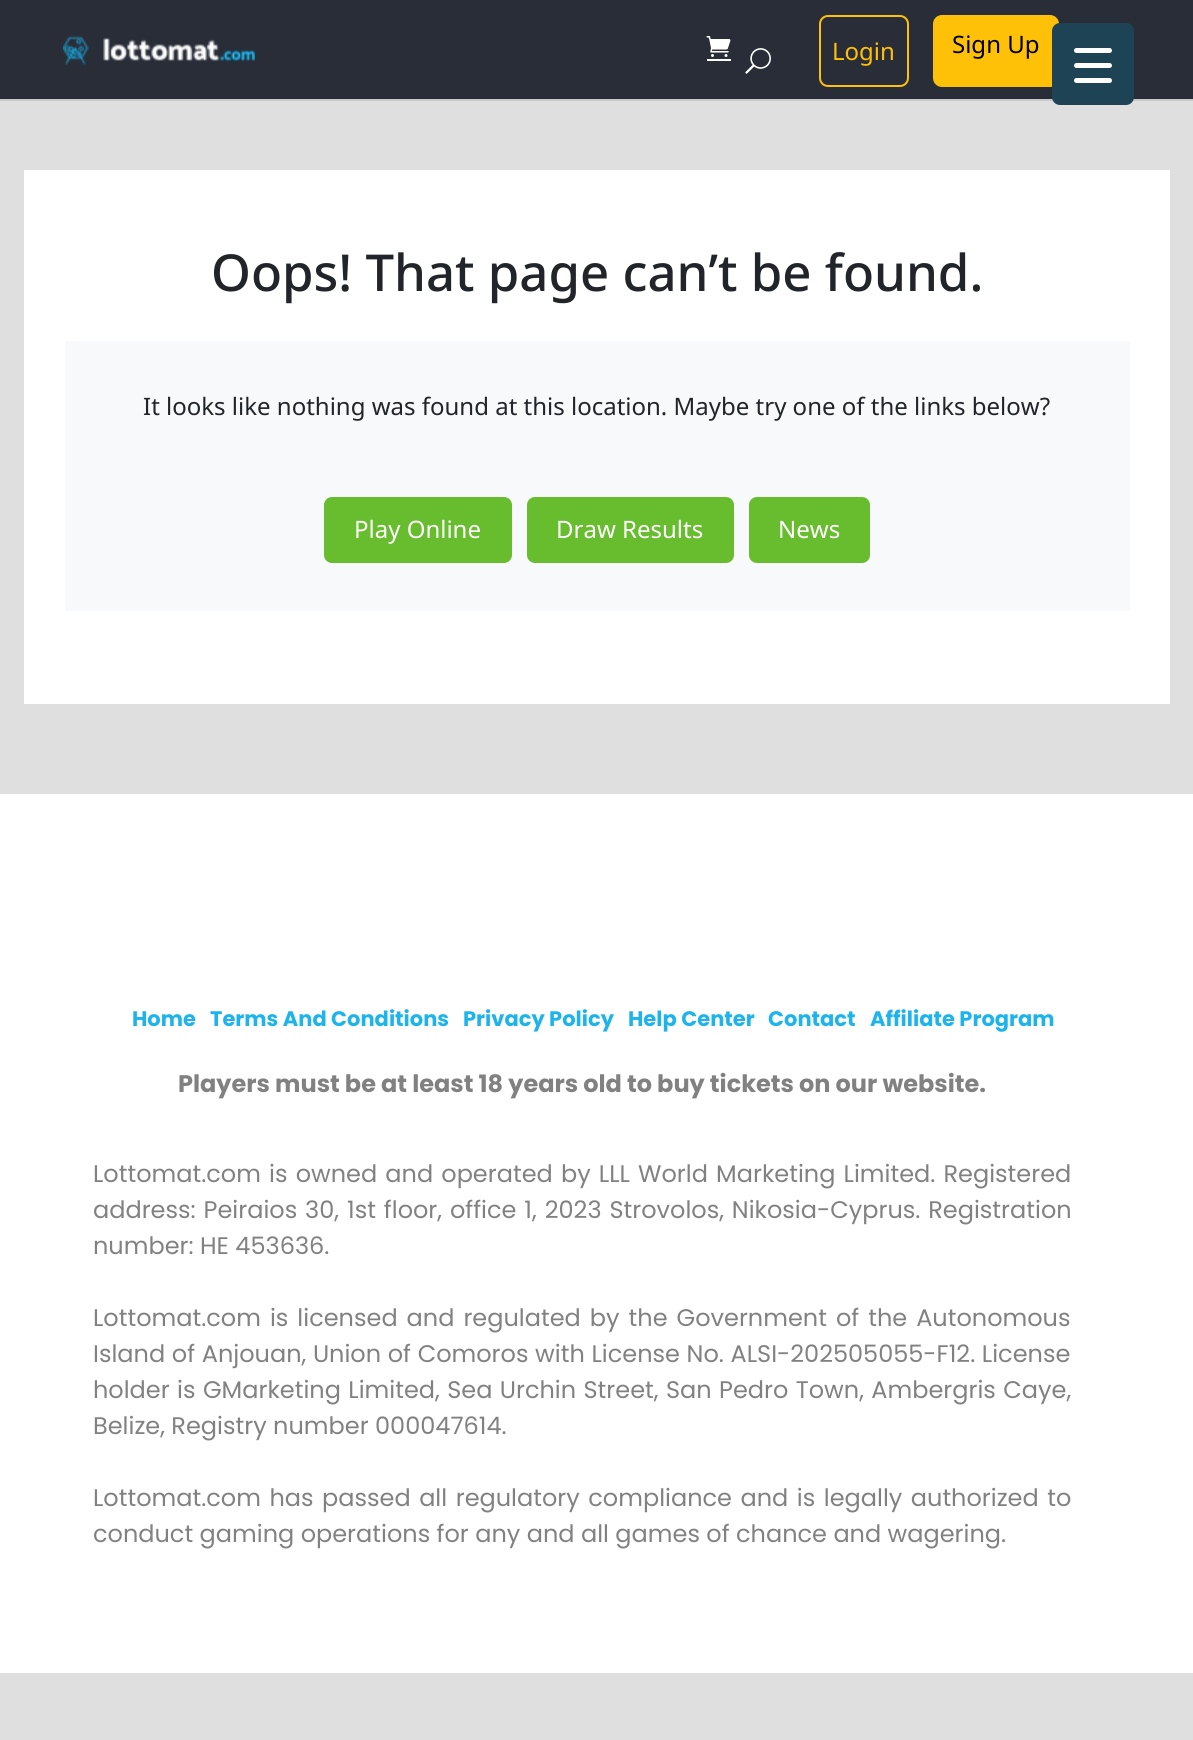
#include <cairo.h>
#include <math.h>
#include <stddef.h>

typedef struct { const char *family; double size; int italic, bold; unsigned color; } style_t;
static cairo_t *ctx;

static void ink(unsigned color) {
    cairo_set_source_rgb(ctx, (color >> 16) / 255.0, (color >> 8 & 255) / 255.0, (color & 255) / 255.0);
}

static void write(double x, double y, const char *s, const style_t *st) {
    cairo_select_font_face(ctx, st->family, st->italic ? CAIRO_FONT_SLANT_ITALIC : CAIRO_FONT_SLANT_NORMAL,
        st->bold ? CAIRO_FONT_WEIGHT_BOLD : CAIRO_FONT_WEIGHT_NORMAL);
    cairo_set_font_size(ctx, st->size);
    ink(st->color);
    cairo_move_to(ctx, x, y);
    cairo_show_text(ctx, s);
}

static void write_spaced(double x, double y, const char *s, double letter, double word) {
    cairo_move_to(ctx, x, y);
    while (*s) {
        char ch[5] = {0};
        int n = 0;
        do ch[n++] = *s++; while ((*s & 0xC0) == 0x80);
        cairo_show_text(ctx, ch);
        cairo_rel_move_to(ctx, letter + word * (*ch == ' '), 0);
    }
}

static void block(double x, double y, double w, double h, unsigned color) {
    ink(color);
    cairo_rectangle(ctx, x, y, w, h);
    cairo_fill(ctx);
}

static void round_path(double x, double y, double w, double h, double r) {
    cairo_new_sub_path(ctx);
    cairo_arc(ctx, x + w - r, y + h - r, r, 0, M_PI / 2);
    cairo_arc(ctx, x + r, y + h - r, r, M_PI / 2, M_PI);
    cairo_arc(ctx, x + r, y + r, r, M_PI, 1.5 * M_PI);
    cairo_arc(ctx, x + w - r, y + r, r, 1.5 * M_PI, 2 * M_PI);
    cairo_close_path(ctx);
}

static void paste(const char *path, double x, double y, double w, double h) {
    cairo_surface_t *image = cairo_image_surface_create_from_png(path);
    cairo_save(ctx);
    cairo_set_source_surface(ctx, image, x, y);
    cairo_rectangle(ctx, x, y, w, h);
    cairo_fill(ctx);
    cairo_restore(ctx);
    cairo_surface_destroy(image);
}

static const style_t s1 = {"Noto Sans", 24, 0, 0, 0xffc107};
static const style_t s2 = {"Noto Sans", 24, 0, 0, 0x000000};
static const style_t s3 = {"Noto Sans Medium", 50.9, 0, 0, 0x212529};
static const style_t s4 = {"Noto Sans", 24, 0, 0, 0x212529};
static const style_t s5 = {"Noto Sans", 24, 0, 0, 0xffffff};
static const style_t s6 = {"Poppins", 21, 0, 1, 0x1db4ed};
static const style_t s7 = {"Poppins", 24, 0, 1, 0x818181};
static const style_t s8 = {"Poppins", 24, 0, 0, 0x818181};

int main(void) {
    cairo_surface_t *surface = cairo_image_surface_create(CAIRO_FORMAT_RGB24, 1193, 1740);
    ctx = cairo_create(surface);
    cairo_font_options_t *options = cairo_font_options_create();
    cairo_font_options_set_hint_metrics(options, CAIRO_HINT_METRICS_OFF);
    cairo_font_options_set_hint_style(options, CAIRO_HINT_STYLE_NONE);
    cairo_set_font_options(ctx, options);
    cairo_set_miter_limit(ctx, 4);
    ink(0xdfdfdf);
    cairo_paint(ctx);
    block(0, 99, 1193, 2, 0xc9c9c9);
    block(0, 0, 1193, 99, 0x292d38);
    paste("pic1.png", 63, 35, 192, 30);
    paste("pic2.png", 706, 36, 25, 21);
    block(707, 59, 24, 2, 0xffffff);
    paste("pic3.png", 745, 48, 26, 26);
    round_path(820, 16, 88, 70, 8);
    ink(0xffc107);
    cairo_stroke(ctx);
    write(832, 60, "Login", &s1);
    round_path(934, 16, 124, 70, 8);
    cairo_fill_preserve(ctx);
    cairo_stroke(ctx);
    write(952, 53, "Sign Up", &s2);
    block(24, 170, 1146, 534, 0xffffff);
    write(211, 291, "Oops! That page can’t be found.", &s3);
    block(65, 341, 1065, 270, 0xf8f9fa);
    write(143, 415, "It looks like nothing was found at this location. Maybe try one of the links below?", &s4);
    ink(0x67bd2e);
    round_path(324, 497, 188, 66, 8);
    cairo_fill(ctx);
    write(354, 538, "Play Online", &s5);
    ink(0x67bd2e);
    round_path(527, 497, 207, 66, 8);
    cairo_fill(ctx);
    write(556, 538, "Draw Results", &s5);
    ink(0x67bd2e);
    round_path(749, 497, 121, 66, 8);
    cairo_fill(ctx);
    write(778, 538, "News", &s5);
    block(0, 794, 1193, 879, 0xffffff);
    write(132, 1026, "Home", &s6);
    write(210, 1026, "Terms And Conditions", &s6);
    write(463, 1026, "Privacy Policy", &s6);
    write(628, 1026, "Help Center", &s6);
    write(768, 1026, "Contact", &s6);
    write(870, 1026, "Affiliate Program", &s6);
    write(178, 1092, "Players must be at least 18 years old to buy tickets on our website.", &s7);
    cairo_select_font_face(ctx, "Poppins", CAIRO_FONT_SLANT_NORMAL, CAIRO_FONT_WEIGHT_NORMAL);
    write_spaced(93, 1182, "Lottomat.com is owned and operated by LLL World Marketing Limited. Registered", 0, 1.75);
    write_spaced(93, 1218, "address: Peiraios 30, 1st floor, office 1, 2023 Strovolos, Nikosia-Cyprus. Registration", 0, 1.5);
    write(93, 1254, "number: HE 453636.", &s8);
    write_spaced(93, 1326, "Lottomat.com is licensed and regulated by the Government of the Autonomous", 0, 2.6);
    write_spaced(93, 1362, "Island of Anjouan, Union of Comoros with License No. ALSI-202505055-F12. License", 0, 0.25);
    write_spaced(93, 1398, "holder is GMarketing Limited, Sea Urchin Street, San Pedro Town, Ambergris Caye,", 0, 1);
    write(93, 1434, "Belize, Registry number 000047614.", &s8);
    write_spaced(93, 1506, "Lottomat.com has passed all regulatory compliance and is legally authorized to", 0, 2.1);
    write(93, 1542, "conduct gaming operations for any and all games of chance and wagering.", &s8);
    ink(0x1d4354);
    round_path(1052, 23, 82, 82, 8);
    cairo_fill(ctx);
    ink(0xffffff);
    round_path(1074, 63, 38, 5, 2.5);
    cairo_fill(ctx);
    round_path(1074, 48, 38, 5, 2.5);
    cairo_fill(ctx);
    round_path(1074, 78, 38, 5, 2.5);
    cairo_fill(ctx);
    cairo_surface_write_to_png(surface, "screenshot.png");
    cairo_font_options_destroy(options);
    cairo_destroy(ctx);
    cairo_surface_destroy(surface);
    return 0;
}
